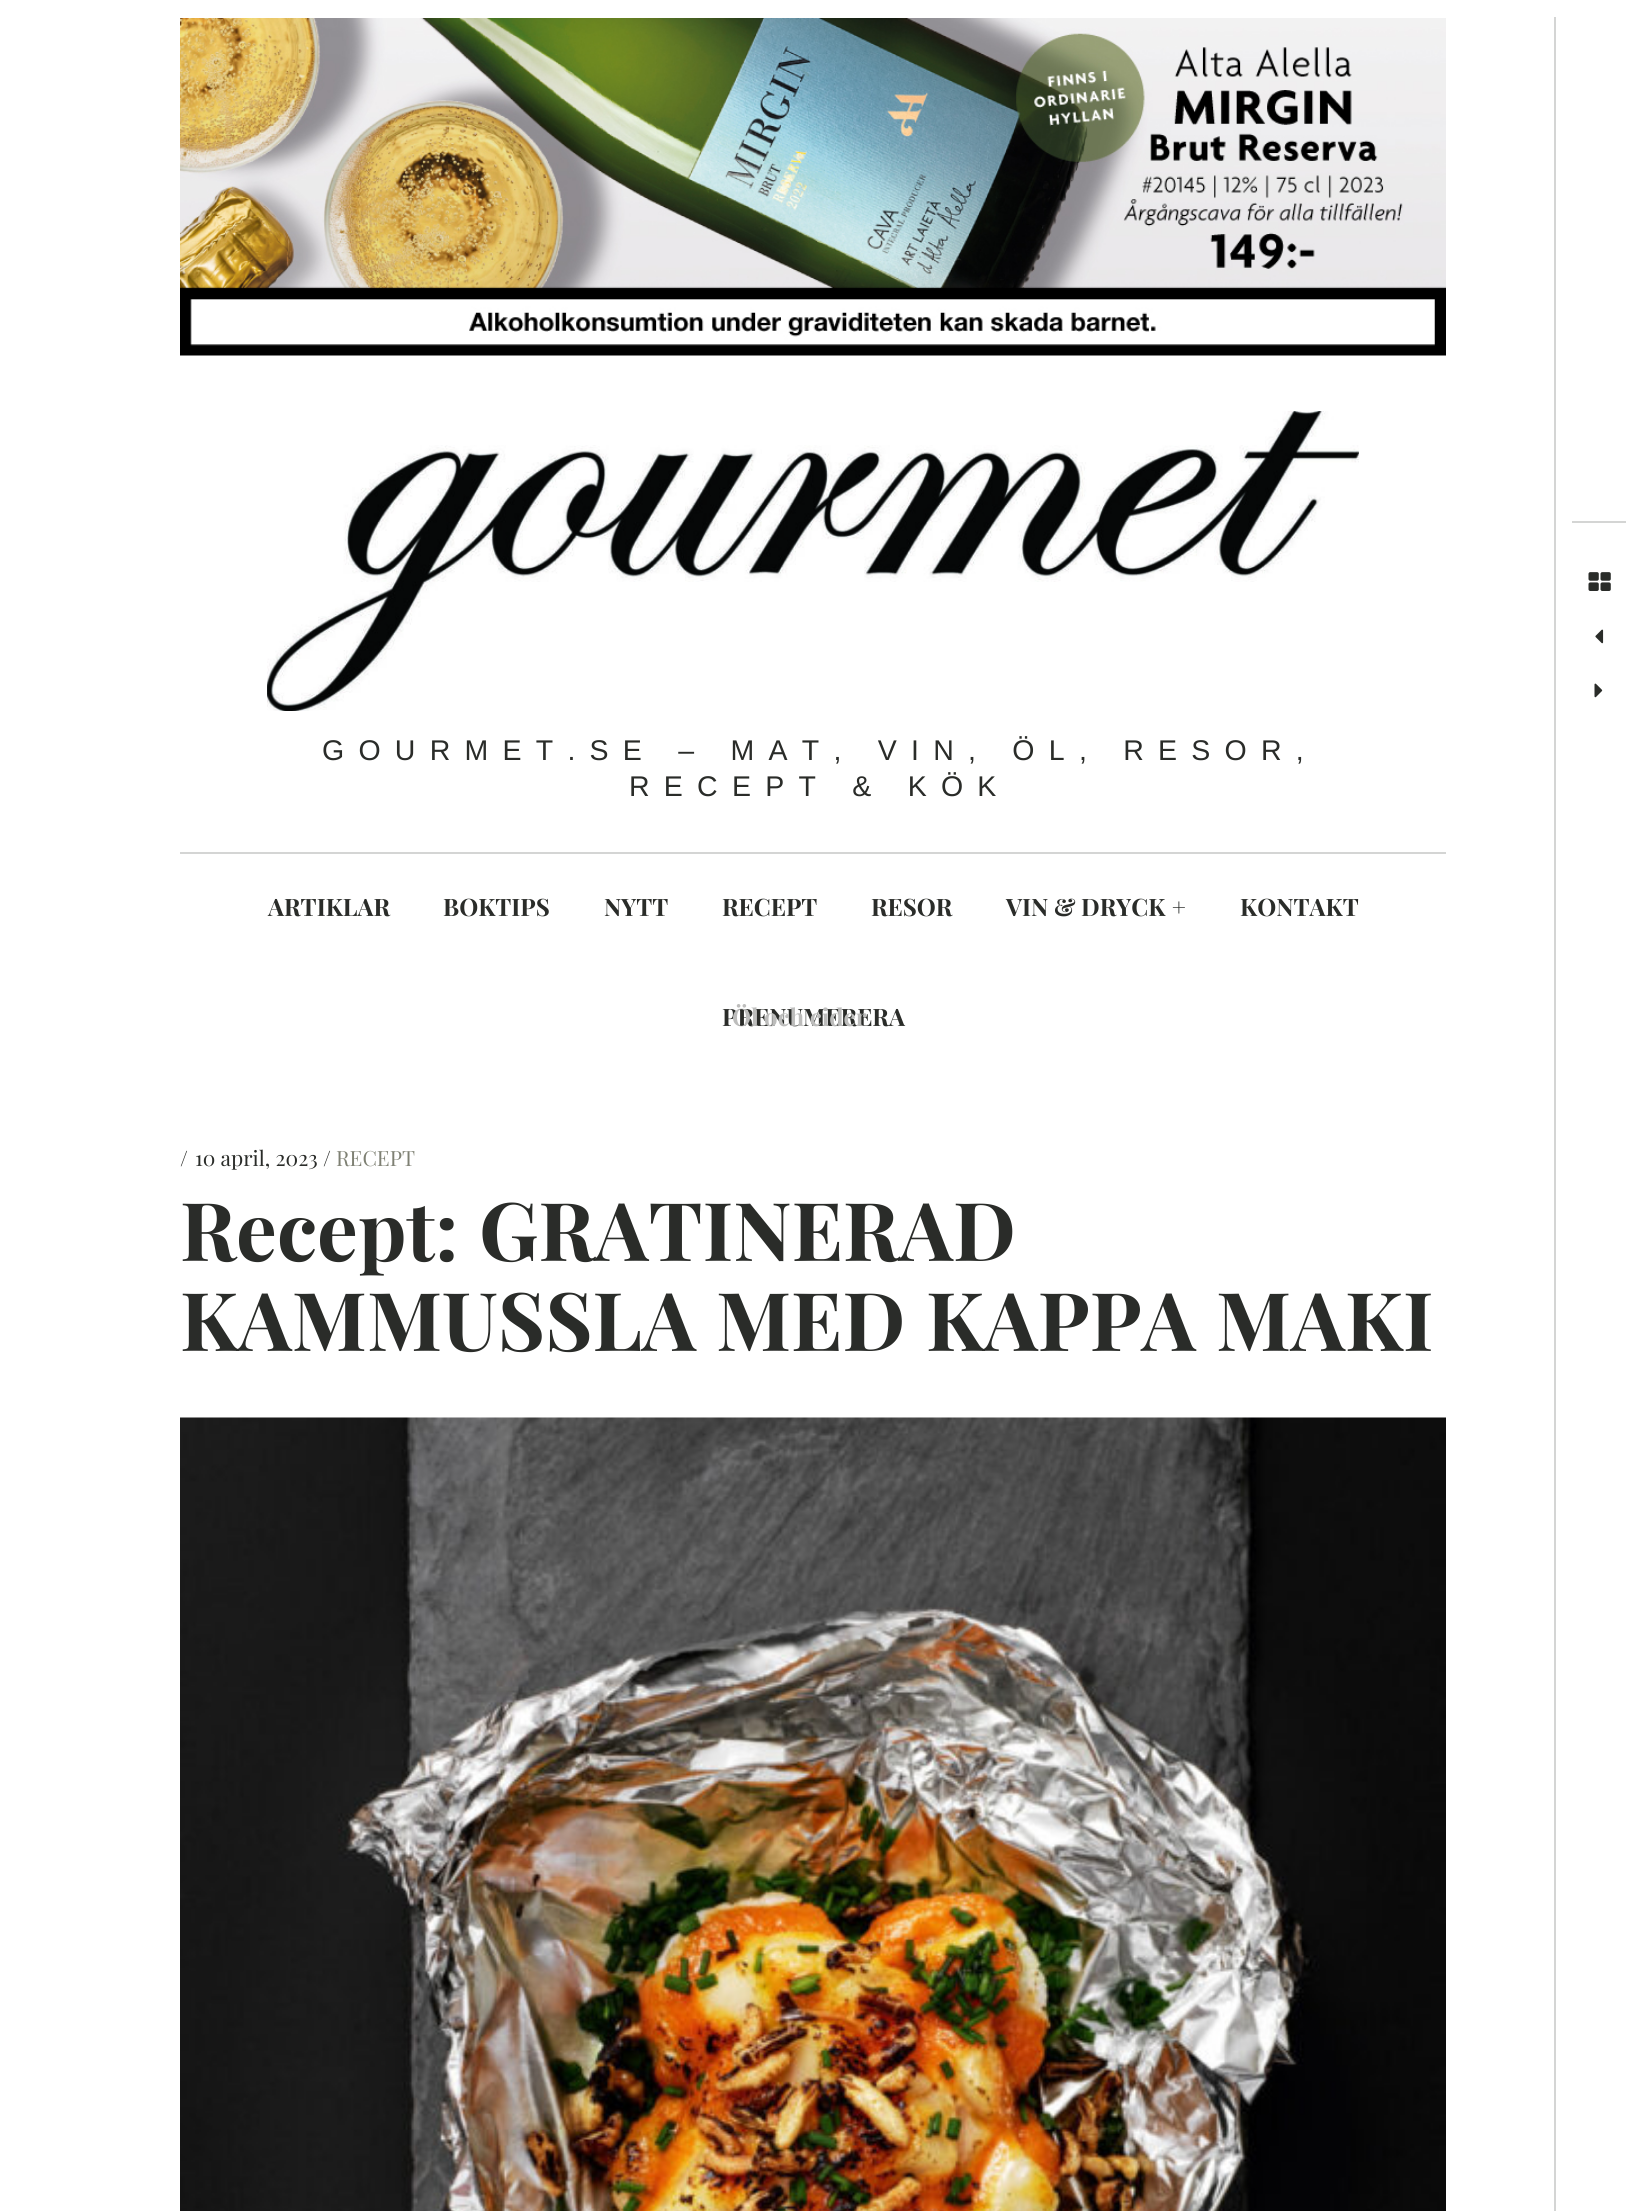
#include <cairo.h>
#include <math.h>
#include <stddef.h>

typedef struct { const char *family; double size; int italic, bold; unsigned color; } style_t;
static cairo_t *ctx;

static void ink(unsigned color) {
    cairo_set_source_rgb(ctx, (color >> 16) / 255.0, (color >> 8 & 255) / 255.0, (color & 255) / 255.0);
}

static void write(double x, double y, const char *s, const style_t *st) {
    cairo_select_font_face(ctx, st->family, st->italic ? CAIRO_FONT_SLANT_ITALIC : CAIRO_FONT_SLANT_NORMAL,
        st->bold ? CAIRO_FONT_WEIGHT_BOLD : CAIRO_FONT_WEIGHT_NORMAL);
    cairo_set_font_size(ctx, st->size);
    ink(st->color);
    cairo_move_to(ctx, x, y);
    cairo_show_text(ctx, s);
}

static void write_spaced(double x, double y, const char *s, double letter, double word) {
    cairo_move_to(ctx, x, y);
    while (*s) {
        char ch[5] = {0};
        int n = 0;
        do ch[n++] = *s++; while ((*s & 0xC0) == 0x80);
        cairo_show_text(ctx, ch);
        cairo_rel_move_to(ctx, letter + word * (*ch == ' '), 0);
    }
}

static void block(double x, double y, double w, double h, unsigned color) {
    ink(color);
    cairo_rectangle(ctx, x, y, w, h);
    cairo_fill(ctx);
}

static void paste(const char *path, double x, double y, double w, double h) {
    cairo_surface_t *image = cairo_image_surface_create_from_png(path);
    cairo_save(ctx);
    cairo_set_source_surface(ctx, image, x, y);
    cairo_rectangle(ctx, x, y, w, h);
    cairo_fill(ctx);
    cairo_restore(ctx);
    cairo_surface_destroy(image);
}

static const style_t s1 = {"Playfair Display", 24, 0, 1, 0x2a2c29};
static const style_t s2 = {"Playfair Display", 24, 0, 1, 0xbdbdbc};
static const style_t s3 = {"Playfair Display", 21, 0, 0, 0x2a2c29};
static const style_t s4 = {"Playfair Display", 21, 0, 0, 0x7e8073};
static const style_t s5 = {"Playfair Display", 81, 0, 1, 0x2a2c29};

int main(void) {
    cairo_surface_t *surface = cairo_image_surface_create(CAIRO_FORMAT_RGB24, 1644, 2211);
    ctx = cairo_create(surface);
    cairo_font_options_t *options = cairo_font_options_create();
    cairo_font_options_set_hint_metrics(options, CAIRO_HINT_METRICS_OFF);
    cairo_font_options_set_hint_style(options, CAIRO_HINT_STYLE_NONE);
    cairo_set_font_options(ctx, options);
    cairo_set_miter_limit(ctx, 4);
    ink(0xffffff);
    cairo_paint(ctx);
    paste("pic1.png", 180, 18, 1266, 338);
    paste("pic2.png", 267, 411, 1092, 300);
    cairo_select_font_face(ctx, "Liberation Sans", CAIRO_FONT_SLANT_NORMAL, CAIRO_FONT_WEIGHT_NORMAL);
    cairo_set_font_size(ctx, 28.5);
    ink(0x2a2c29);
    write_spaced(322, 760, "GOURMET.SE – MAT, VIN, ÖL, RESOR,", 14.25, 0);
    write_spaced(629, 796, "RECEPT & KÖK", 14.25, 0);
    block(180, 852, 1266, 2, 0xd4d5d4);
    write(268, 916, "ARTIKLAR", &s1);
    write(443, 916, "BOKTIPS", &s1);
    write(722, 916, "RECEPT", &s1);
    write(1006, 916, "VIN & DRYCK", &s1);
    write(1172, 916, "+", &s1);
    write(722, 1026, "PRENUMERERA", &s1);
    write(732, 1026, "Öl och cider", &s2);
    write(604, 916, "NYTT", &s1);
    write(871, 916, "RESOR", &s1);
    write(1240, 916, "KONTAKT", &s1);
    write(180, 1166, "/", &s3);
    write(195, 1166, "10 april, 2023 /", &s3);
    write(336, 1166, "RECEPT", &s4);
    write(180, 1261, "Recept:", &s5);
    write(479, 1261, "GRATINERAD", &s5);
    write(180, 1351, "KAMMUSSLA", &s5);
    write(716, 1351, "MED", &s5);
    write(926, 1351, "KAPPA", &s5);
    write(1216, 1351, "MAKI", &s5);
    paste("pic3.png", 180, 1417, 1266, 794);
    block(1554, 17, 2, 2194, 0xd4d5d4);
    block(1572, 521, 54, 2, 0xd4d5d4);
    paste("pic4.png", 1588, 572, 23, 19);
    paste("pic5.png", 1595, 629, 9, 15);
    paste("pic6.png", 1594, 683, 9, 15);
    cairo_surface_write_to_png(surface, "screenshot.png");
    cairo_font_options_destroy(options);
    cairo_destroy(ctx);
    cairo_surface_destroy(surface);
    return 0;
}
